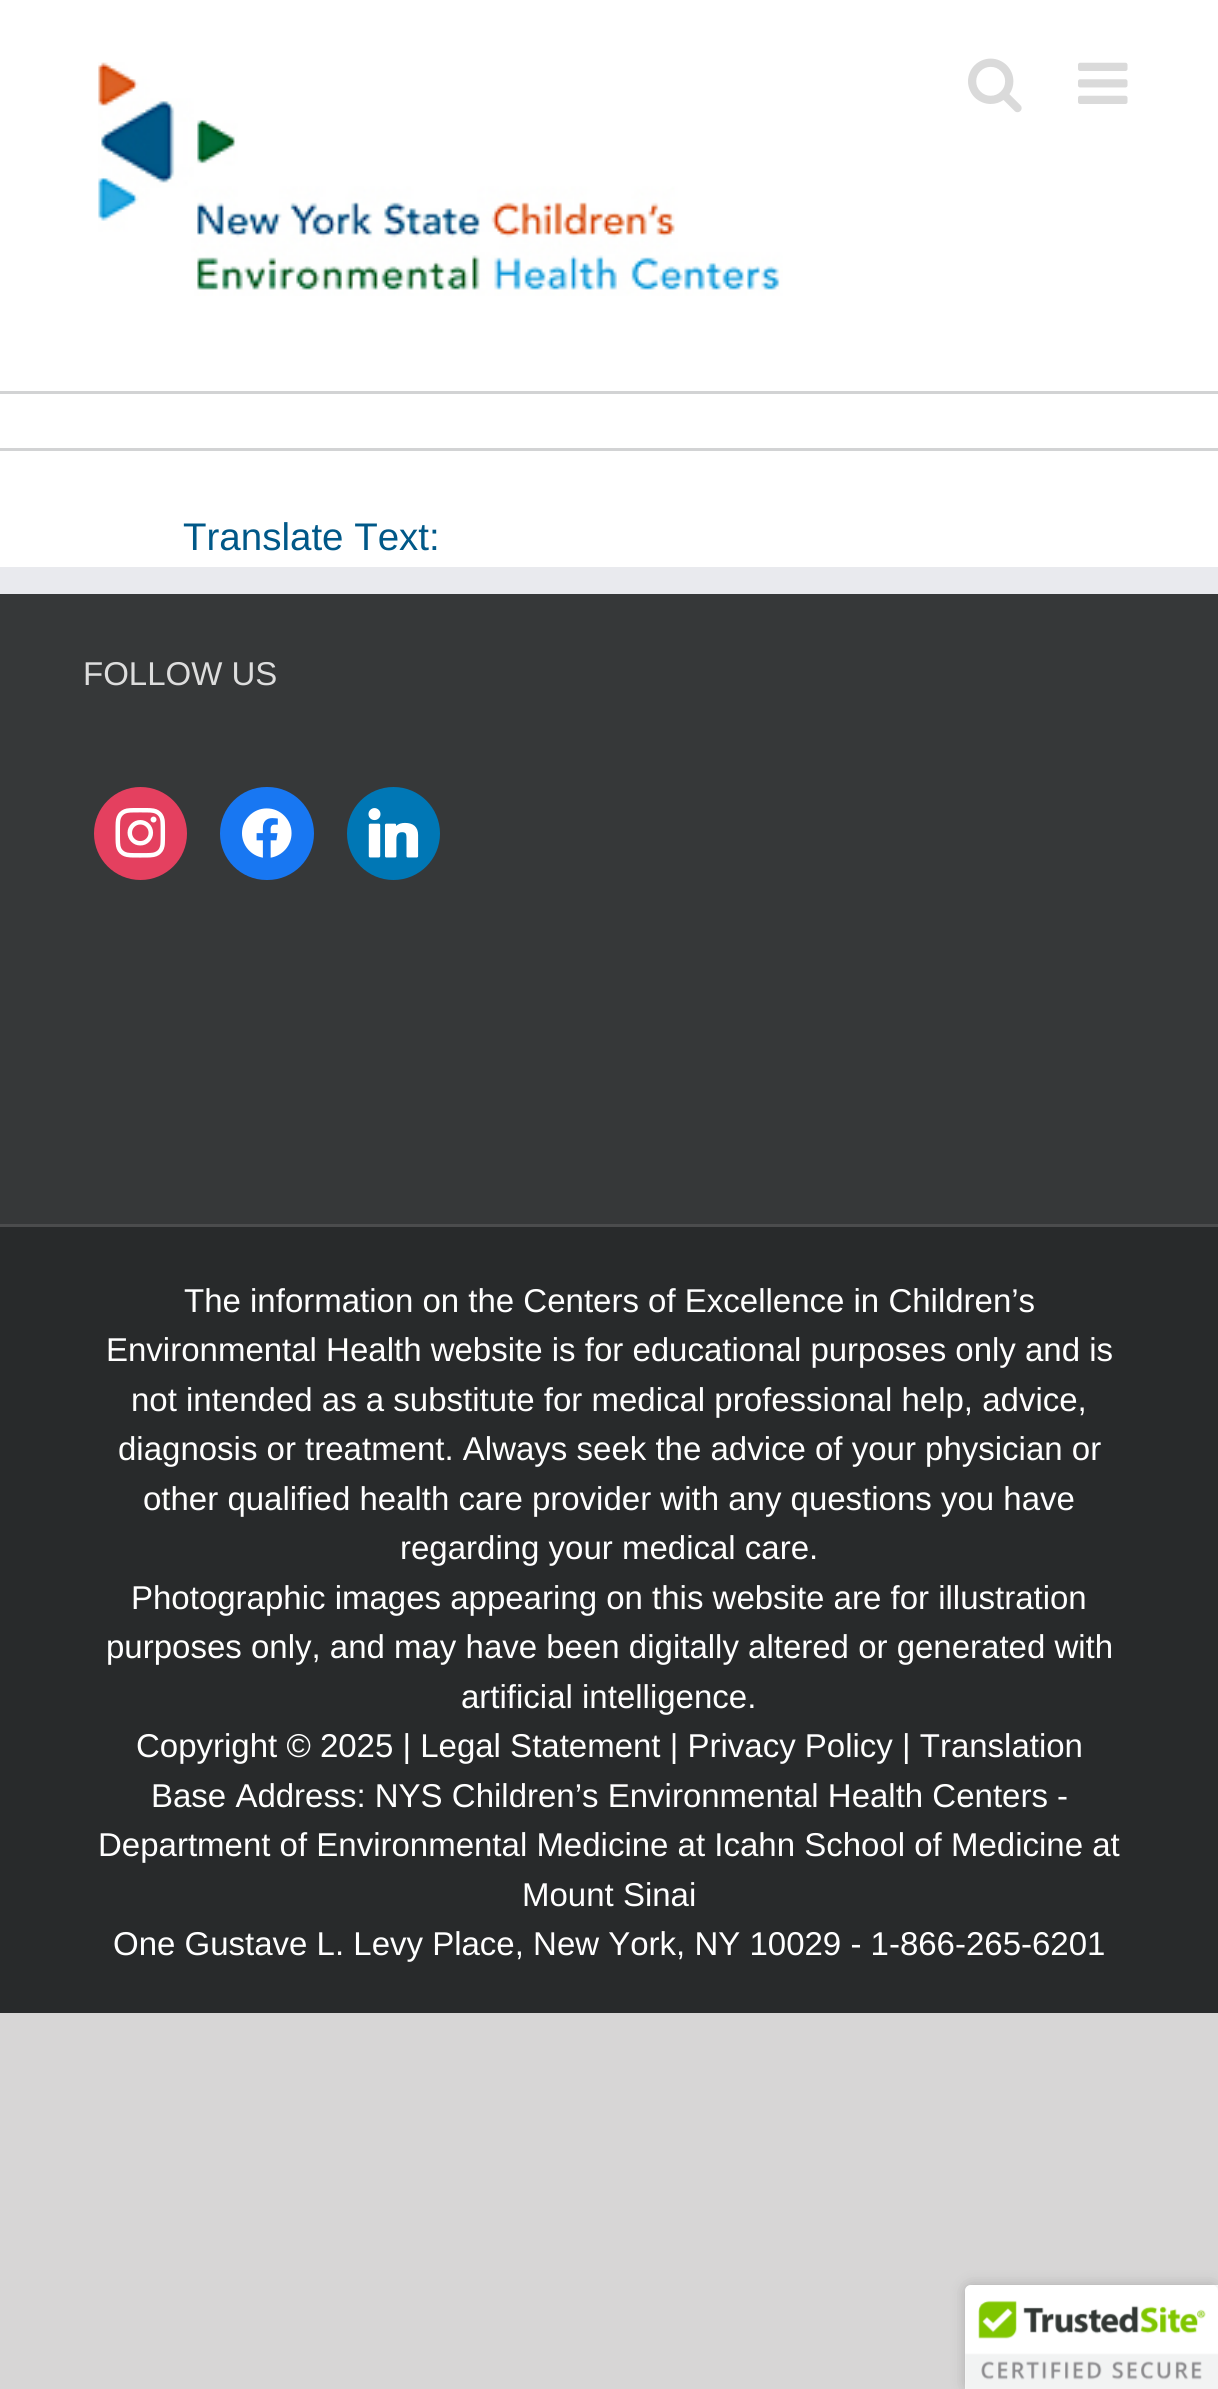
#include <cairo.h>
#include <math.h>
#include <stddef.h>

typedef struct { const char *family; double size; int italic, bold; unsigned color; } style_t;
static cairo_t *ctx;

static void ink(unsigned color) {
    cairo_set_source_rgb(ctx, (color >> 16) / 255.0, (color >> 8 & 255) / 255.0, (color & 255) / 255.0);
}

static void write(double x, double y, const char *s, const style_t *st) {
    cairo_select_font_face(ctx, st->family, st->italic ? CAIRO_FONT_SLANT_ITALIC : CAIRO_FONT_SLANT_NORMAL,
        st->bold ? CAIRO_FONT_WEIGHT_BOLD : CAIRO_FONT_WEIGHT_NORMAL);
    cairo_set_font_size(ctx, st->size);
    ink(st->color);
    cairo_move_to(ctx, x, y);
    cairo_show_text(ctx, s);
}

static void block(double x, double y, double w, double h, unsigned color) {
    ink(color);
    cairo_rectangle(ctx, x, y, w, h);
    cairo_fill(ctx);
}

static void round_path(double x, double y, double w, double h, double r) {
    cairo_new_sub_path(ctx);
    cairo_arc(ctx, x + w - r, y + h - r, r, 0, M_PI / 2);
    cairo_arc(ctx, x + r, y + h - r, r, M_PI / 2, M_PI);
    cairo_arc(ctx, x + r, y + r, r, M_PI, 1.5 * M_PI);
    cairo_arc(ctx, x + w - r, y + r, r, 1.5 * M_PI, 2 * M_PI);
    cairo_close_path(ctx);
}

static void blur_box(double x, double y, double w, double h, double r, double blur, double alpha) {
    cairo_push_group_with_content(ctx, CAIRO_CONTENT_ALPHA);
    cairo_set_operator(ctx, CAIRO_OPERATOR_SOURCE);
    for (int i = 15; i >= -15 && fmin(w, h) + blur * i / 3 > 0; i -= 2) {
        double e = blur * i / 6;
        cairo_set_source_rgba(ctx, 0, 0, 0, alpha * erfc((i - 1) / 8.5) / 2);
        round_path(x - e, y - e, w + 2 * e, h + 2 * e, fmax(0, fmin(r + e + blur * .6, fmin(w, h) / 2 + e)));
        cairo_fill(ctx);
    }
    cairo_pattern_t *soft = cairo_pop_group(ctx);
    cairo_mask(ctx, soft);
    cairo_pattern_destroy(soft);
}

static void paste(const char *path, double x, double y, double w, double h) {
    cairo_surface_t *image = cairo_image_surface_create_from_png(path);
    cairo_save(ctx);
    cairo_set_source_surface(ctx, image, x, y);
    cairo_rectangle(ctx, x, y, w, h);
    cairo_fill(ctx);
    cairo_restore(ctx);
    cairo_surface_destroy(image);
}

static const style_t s1 = {"Liberation Sans", 38.5, 0, 0, 0x005888};
static const style_t s2 = {"Liberation Sans", 33, 0, 0, 0xdddddd};
static const style_t s3 = {"Liberation Sans", 33, 0, 0, 0xffffff};

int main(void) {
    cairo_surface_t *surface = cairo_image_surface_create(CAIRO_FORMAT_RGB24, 1218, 2389);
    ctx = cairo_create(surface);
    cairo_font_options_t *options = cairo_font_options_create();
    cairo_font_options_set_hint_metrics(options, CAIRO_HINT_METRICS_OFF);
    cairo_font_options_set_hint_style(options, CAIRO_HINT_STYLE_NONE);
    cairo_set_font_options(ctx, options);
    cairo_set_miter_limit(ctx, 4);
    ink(0xd7d6d6);
    cairo_paint(ctx);
    block(0, 0, 1218, 567, 0xffffff);
    paste("pic1.png", 98, 62, 685, 234);
    paste("pic2.png", 968, 58, 54, 55);
    paste("pic3.png", 1078, 62, 50, 42);
    block(0, 391, 1218, 3, 0xd2d3d4);
    block(0, 448, 1218, 3, 0xd2d3d4);
    write(183, 550, "Translate Text:", &s1);
    block(0, 594, 1218, 630, 0x363839);
    block(0, 567, 1218, 27, 0xe9eaee);
    write(83, 685, "FOLLOW US", &s2);
    ink(0xe4405f);
    cairo_new_path(ctx);
    cairo_arc(ctx, 140.5, 833.5, 46.5, 0, 2 * M_PI);
    cairo_fill(ctx);
    paste("pic4.png", 115, 808, 51, 50);
    ink(0x1877f2);
    round_path(220, 787, 94, 93, 46.5);
    cairo_fill(ctx);
    paste("pic5.png", 242, 808, 50, 50);
    ink(0x0077b5);
    cairo_arc(ctx, 393.5, 833.5, 46.5, 0, 2 * M_PI);
    cairo_fill(ctx);
    paste("pic6.png", 368, 808, 51, 50);
    block(0, 1227, 1218, 786, 0x282a2b);
    block(0, 1224, 1218, 3, 0x4b4c4d);
    write(184, 1312, "The information on the Centers of Excellence in Children’s", &s3);
    write(106, 1361, "Environmental Health website is for educational purposes only and is", &s3);
    write(131, 1411, "not intended as a substitute for medical professional help, advice,", &s3);
    write(118, 1460, "diagnosis or treatment. Always seek the advice of your physician or", &s3);
    write(143, 1510, "other qualified health care provider with any questions you have", &s3);
    write(400, 1559, "regarding your medical care.", &s3);
    write(131, 1609, "Photographic images appearing on this website are for illustration", &s3);
    write(106, 1658, "purposes only, and may have been digitally altered or generated with", &s3);
    write(461, 1708, "artificial intelligence.", &s3);
    write(136, 1757, "Copyright © 2025 | Legal Statement | Privacy Policy | Translation", &s3);
    write(151, 1807, "Base Address: NYS Children’s Environmental Health Centers -", &s3);
    write(98, 1856, "Department of Environmental Medicine at Icahn School of Medicine at", &s3);
    write(522, 1906, "Mount Sinai", &s3);
    write(113, 1955, "One Gustave L. Levy Place, New York, NY 10029 - 1-866-265-6201", &s3);
    ink(0x000000);
    blur_box(965, 2285, 253, 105, 6, 7, 0.2);
    ink(0xffffff);
    cairo_new_path(ctx);
    cairo_move_to(ctx, 971, 2285);
    cairo_line_to(ctx, 1218, 2285);
    cairo_line_to(ctx, 1218, 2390);
    cairo_line_to(ctx, 965, 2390);
    cairo_line_to(ctx, 965, 2291);
    cairo_curve_to(ctx, 965, 2287.5, 967.5, 2285, 971, 2285);
    cairo_close_path(ctx);
    cairo_fill(ctx);
    paste("pic7.png", 965, 2285, 253, 104);
    cairo_surface_write_to_png(surface, "screenshot.png");
    cairo_font_options_destroy(options);
    cairo_destroy(ctx);
    cairo_surface_destroy(surface);
    return 0;
}
